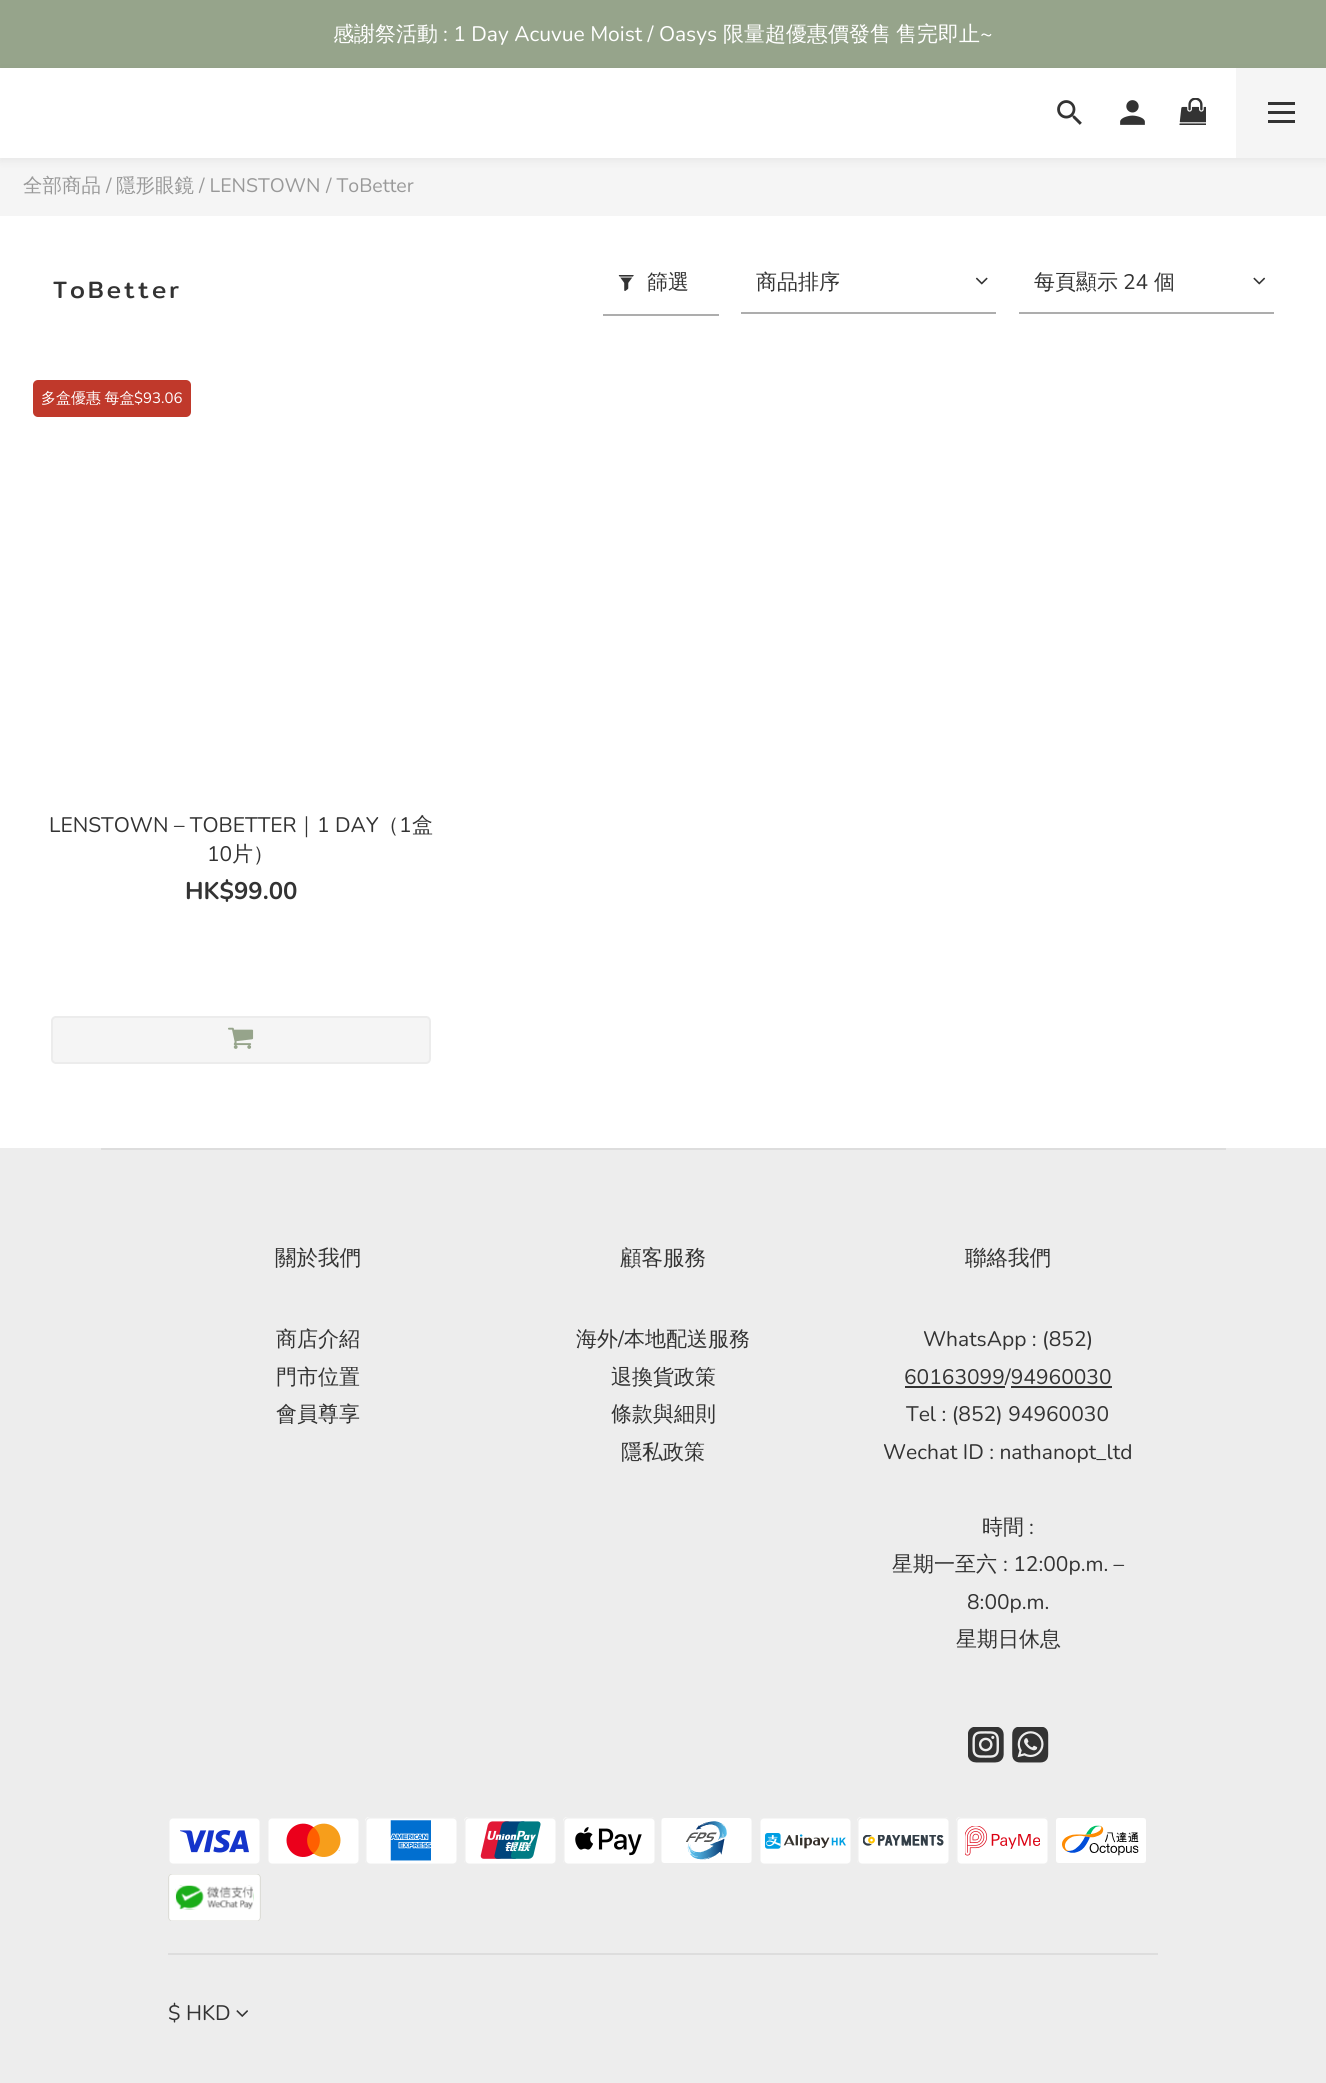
#include <cairo.h>
#include <math.h>
#include <stddef.h>

typedef struct { const char *family; double size; int italic, bold; unsigned color; } style_t;
static cairo_t *ctx;

static void ink(unsigned color) {
    cairo_set_source_rgb(ctx, (color >> 16) / 255.0, (color >> 8 & 255) / 255.0, (color & 255) / 255.0);
}

static void write(double x, double y, const char *s, const style_t *st) {
    cairo_select_font_face(ctx, st->family, st->italic ? CAIRO_FONT_SLANT_ITALIC : CAIRO_FONT_SLANT_NORMAL,
        st->bold ? CAIRO_FONT_WEIGHT_BOLD : CAIRO_FONT_WEIGHT_NORMAL);
    cairo_set_font_size(ctx, st->size);
    ink(st->color);
    cairo_move_to(ctx, x, y);
    cairo_show_text(ctx, s);
}

static void write_spaced(double x, double y, const char *s, double letter, double word) {
    cairo_move_to(ctx, x, y);
    while (*s) {
        char ch[5] = {0};
        int n = 0;
        do ch[n++] = *s++; while ((*s & 0xC0) == 0x80);
        cairo_show_text(ctx, ch);
        cairo_rel_move_to(ctx, letter + word * (*ch == ' '), 0);
    }
}

static void block(double x, double y, double w, double h, unsigned color) {
    ink(color);
    cairo_rectangle(ctx, x, y, w, h);
    cairo_fill(ctx);
}

static void round_path(double x, double y, double w, double h, double r) {
    cairo_new_sub_path(ctx);
    cairo_arc(ctx, x + w - r, y + h - r, r, 0, M_PI / 2);
    cairo_arc(ctx, x + r, y + h - r, r, M_PI / 2, M_PI);
    cairo_arc(ctx, x + r, y + r, r, M_PI, 1.5 * M_PI);
    cairo_arc(ctx, x + w - r, y + r, r, 1.5 * M_PI, 2 * M_PI);
    cairo_close_path(ctx);
}

static void blur_box(double x, double y, double w, double h, double r, double blur, double alpha) {
    cairo_push_group_with_content(ctx, CAIRO_CONTENT_ALPHA);
    cairo_set_operator(ctx, CAIRO_OPERATOR_SOURCE);
    for (int i = 15; i >= -15 && fmin(w, h) + blur * i / 3 > 0; i -= 2) {
        double e = blur * i / 6;
        cairo_set_source_rgba(ctx, 0, 0, 0, alpha * erfc((i - 1) / 8.5) / 2);
        round_path(x - e, y - e, w + 2 * e, h + 2 * e, fmax(0, fmin(r + e + blur * .6, fmin(w, h) / 2 + e)));
        cairo_fill(ctx);
    }
    cairo_pattern_t *soft = cairo_pop_group(ctx);
    cairo_mask(ctx, soft);
    cairo_pattern_destroy(soft);
}

static void paste(const char *path, double x, double y, double w, double h) {
    cairo_surface_t *image = cairo_image_surface_create_from_png(path);
    cairo_save(ctx);
    cairo_set_source_surface(ctx, image, x, y);
    cairo_rectangle(ctx, x, y, w, h);
    cairo_fill(ctx);
    cairo_restore(ctx);
    cairo_surface_destroy(image);
}

static const style_t s1 = {"WenQuanYi Zen Hei Medium", 21, 0, 0, 0xffffff};
static const style_t s2 = {"Nunito", 21, 0, 0, 0xffffff};
static const style_t s3 = {"WenQuanYi Zen Hei Medium", 19.5, 0, 0, 0x999999};
static const style_t s4 = {"Nunito", 19.5, 0, 0, 0x999999};
static const style_t s5 = {"WenQuanYi Zen Hei Medium", 21, 0, 0, 0x333333};
static const style_t s6 = {"Nunito", 21, 0, 0, 0x333333};
static const style_t s7 = {"Nunito", 15, 0, 0, 0xffffff};
static const style_t s8 = {"Nunito", 24, 0, 1, 0x333333};
static const style_t s9 = {"WenQuanYi Zen Hei Medium", 21.5, 0, 0, 0x333333};

int main(void) {
    cairo_surface_t *surface = cairo_image_surface_create(CAIRO_FORMAT_RGB24, 1326, 2083);
    ctx = cairo_create(surface);
    cairo_font_options_t *options = cairo_font_options_create();
    cairo_font_options_set_hint_metrics(options, CAIRO_HINT_METRICS_OFF);
    cairo_font_options_set_hint_style(options, CAIRO_HINT_STYLE_NONE);
    cairo_set_font_options(ctx, options);
    cairo_set_miter_limit(ctx, 4);
    ink(0xffffff);
    cairo_paint(ctx);
    block(0, 0, 1326, 68, 0x96a48b);
    write(333, 41, "感謝祭活動", &s1);
    write(443, 41, ": 1 Day Acuvue Moist / Oasys", &s2);
    write(723, 41, "限量超優惠價發售", &s1);
    write(896, 41, "售完即止", &s1);
    write(980, 41, "~", &s2);
    block(0, 158, 1326, 58, 0xf5f5f5);
    ink(0x000000);
    blur_box(0, 71, 1326, 90, 0, 4.5, 0.06);
    block(0, 68, 1236, 90, 0xffffff);
    paste("pic1.png", 1057, 100, 25, 25);
    paste("pic2.png", 1120, 100, 25, 25);
    paste("pic3.png", 1179, 98, 27, 27);
    block(1236, 68, 90, 90, 0xf5f5f5);
    block(1268, 111, 27, 3, 0x333333);
    block(1268, 102, 27, 3, 0x333333);
    block(1268, 120, 27, 3, 0x333333);
    write(23, 192, "全部商品", &s3);
    write(106, 192, "/", &s4);
    write(116, 192, "隱形眼鏡", &s3);
    write(199, 192, "/ LENSTOWN", &s4);
    write(326, 192, "/ ToBetter", &s4);
    cairo_select_font_face(ctx, "Mitr", CAIRO_FONT_SLANT_NORMAL, CAIRO_FONT_WEIGHT_NORMAL);
    cairo_set_font_size(ctx, 24);
    ink(0x333333);
    write_spaced(53, 298, "ToBetter", 3, 0);
    block(603, 314, 116, 2, 0xadadad);
    paste("pic4.png", 618, 275, 16, 16);
    write(647, 289, "篩選", &s5);
    write(756, 289, "商品排序", &s5);
    block(741, 312, 255, 2, 0xadadad);
    paste("pic5.png", 975, 277, 13, 8);
    write(1034, 289, "每頁顯示", &s5);
    write(1123, 289, "24", &s6);
    write(1154, 289, "個", &s5);
    block(1019, 312, 255, 2, 0xadadad);
    paste("pic6.png", 1253, 277, 13, 8);
    ink(0xc0392b);
    round_path(33, 380, 158, 37, 5);
    cairo_fill(ctx);
    cairo_set_font_size(ctx, 15);
    ink(0xffffff);
    write_spaced(41, 403, "多盒優惠 每盒", 0, -1);
    write(134, 403, "$93.06", &s7);
    write(49, 832, "LENSTOWN – TOBETTER", &s6);
    write(296, 832, "｜", &s5);
    write(317, 832, "1 DAY", &s6);
    write(378, 832, "（", &s5);
    write(399, 832, "1", &s6);
    write(412, 832, "盒", &s5);
    write(207, 861, "10", &s6);
    write(232, 861, "片）", &s5);
    write(185, 899, "HK$99.00", &s8);
    ink(0xf5f5f5);
    round_path(51, 1016, 380, 48, 5);
    cairo_fill(ctx);
    round_path(52, 1017, 378, 46, 4);
    cairo_set_source_rgba(ctx, 0.8, 0.8, 0.8, 0.2);
    cairo_stroke(ctx);
    paste("pic7.png", 228, 1027, 26, 22);
    block(0, 1148, 1326, 935, 0xededed);
    block(101, 1148, 1125, 2, 0xdddddd);
    write(275, 1265, "關於我們", &s9);
    write(276, 1346, "商店介紹", &s5);
    write(276, 1384, "門市位置", &s5);
    write(276, 1421, "會員尊享", &s5);
    write(620, 1265, "顧客服務", &s9);
    write(576, 1346, "海外", &s5);
    write(618, 1346, "/", &s6);
    write(624, 1346, "本地配送服務", &s5);
    write(611, 1384, "退換貨政策", &s5);
    write(611, 1421, "條款與細則", &s5);
    write(621, 1459, "隱私政策", &s5);
    write(965, 1265, "聯絡我們", &s9);
    write(923, 1346, "WhatsApp : (852)", &s6);
    write(904, 1384, "60163099/94960030", &s6);
    block(905, 1386, 100, 2, 0x333333);
    block(1011, 1386, 101, 2, 0x333333);
    write(906, 1421, "Tel : (852) 94960030", &s6);
    write(883, 1459, "Wechat ID : nathanopt_ltd", &s6);
    write(982, 1534, "時間", &s5);
    write(1029, 1534, ":", &s6);
    write(892, 1571, "星期一至六", &s5);
    write(1003, 1571, ": 12:00p.m. –", &s6);
    write(967, 1609, "8:00p.m.", &s6);
    write(956, 1646, "星期日休息", &s5);
    paste("pic8.png", 968, 1727, 36, 36);
    paste("pic9.png", 1012, 1727, 37, 36);
    paste("pic10.png", 169, 1818, 91, 46);
    paste("pic11.png", 268, 1818, 91, 46);
    paste("pic12.png", 365, 1817, 92, 47);
    paste("pic13.png", 464, 1817, 92, 47);
    paste("pic14.png", 563, 1817, 92, 47);
    paste("pic15.png", 661, 1818, 91, 45);
    paste("pic16.png", 760, 1818, 91, 46);
    paste("pic17.png", 857, 1817, 92, 47);
    paste("pic18.png", 956, 1817, 92, 47);
    paste("pic19.png", 1056, 1818, 90, 45);
    paste("pic20.png", 168, 1874, 93, 47);
    block(168, 1953, 990, 2, 0xdddddd);
    write(168, 2020, "$ HKD", &s6);
    paste("pic21.png", 236, 2010, 12, 7);
    cairo_surface_write_to_png(surface, "screenshot.png");
    cairo_font_options_destroy(options);
    cairo_destroy(ctx);
    cairo_surface_destroy(surface);
    return 0;
}
